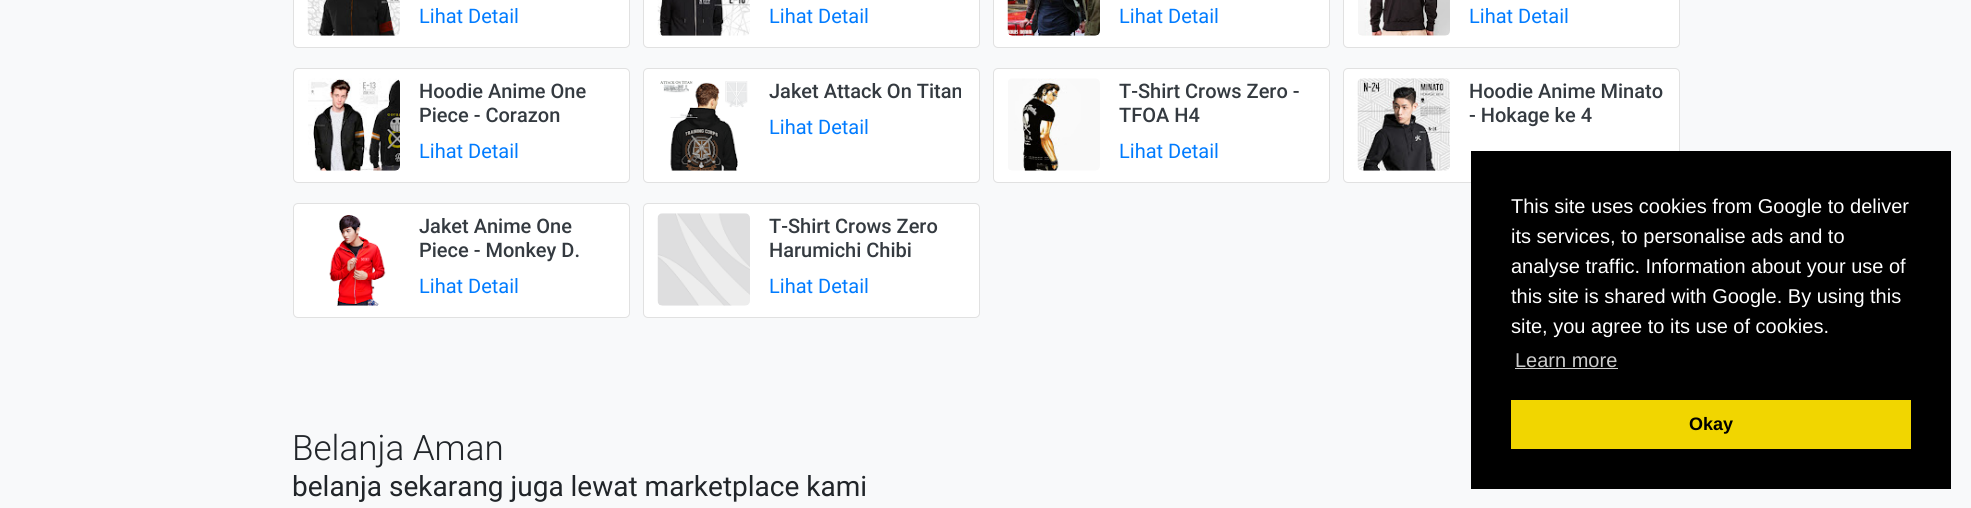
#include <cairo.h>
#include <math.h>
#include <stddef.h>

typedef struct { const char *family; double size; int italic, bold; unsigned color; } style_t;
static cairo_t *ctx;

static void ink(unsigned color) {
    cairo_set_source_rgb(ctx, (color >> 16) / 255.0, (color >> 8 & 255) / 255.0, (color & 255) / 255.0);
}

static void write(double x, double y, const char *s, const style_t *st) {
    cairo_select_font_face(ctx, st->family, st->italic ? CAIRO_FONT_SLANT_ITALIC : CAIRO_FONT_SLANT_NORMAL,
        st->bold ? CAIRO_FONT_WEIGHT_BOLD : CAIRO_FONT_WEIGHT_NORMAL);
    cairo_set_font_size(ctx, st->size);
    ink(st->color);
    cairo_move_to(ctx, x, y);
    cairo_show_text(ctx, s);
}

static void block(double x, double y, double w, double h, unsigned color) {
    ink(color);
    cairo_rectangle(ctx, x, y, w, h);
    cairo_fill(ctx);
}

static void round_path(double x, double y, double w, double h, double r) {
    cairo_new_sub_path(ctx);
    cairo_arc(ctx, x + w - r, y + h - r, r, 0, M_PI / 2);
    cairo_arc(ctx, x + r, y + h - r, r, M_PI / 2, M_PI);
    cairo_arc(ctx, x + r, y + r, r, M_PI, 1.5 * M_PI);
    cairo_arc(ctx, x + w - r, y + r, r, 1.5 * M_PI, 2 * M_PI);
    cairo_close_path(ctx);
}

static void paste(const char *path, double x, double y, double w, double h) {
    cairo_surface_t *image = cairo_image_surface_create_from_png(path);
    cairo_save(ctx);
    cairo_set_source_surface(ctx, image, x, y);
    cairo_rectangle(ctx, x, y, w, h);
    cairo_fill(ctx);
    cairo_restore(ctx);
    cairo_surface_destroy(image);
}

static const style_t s1 = {"Roboto", 20, 0, 0, 0x007bff};
static const style_t s2 = {"Roboto Medium", 20, 0, 0, 0x343a40};
static const style_t s3 = {"Liberation Sans", 20, 0, 0, 0xffffff};
static const style_t s4 = {"Liberation Sans", 20, 0, 0, 0xcccccc};
static const style_t s5 = {"Liberation Sans", 18, 0, 1, 0x000000};
static const style_t s6 = {"Roboto Light", 35, 0, 0, 0x212529};
static const style_t s7 = {"Roboto", 28, 0, 0, 0x212529};

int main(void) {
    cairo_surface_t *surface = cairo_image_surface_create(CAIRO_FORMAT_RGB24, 1971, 508);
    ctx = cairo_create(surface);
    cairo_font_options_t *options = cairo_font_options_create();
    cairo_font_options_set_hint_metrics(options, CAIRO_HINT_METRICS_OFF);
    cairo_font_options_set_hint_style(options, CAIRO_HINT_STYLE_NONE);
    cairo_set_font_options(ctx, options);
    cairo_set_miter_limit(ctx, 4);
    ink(0xf8f9fa);
    cairo_paint(ctx);
    ink(0xffffff);
    round_path(293, -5, 337, 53, 5);
    cairo_fill(ctx);
    round_path(293.5, -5.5, 336, 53, 4.5);
    cairo_set_source_rgba(ctx, 0, 0, 0, 0.12);
    cairo_set_line_width(ctx, 1);
    cairo_stroke(ctx);
    paste("pic1.png", 307, 0, 93, 36);
    write(419, 23, "Lihat Detail", &s1);
    ink(0xffffff);
    round_path(643, -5, 337, 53, 5);
    cairo_fill(ctx);
    round_path(643.5, -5.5, 336, 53, 4.5);
    cairo_set_source_rgba(ctx, 0, 0, 0, 0.12);
    cairo_stroke(ctx);
    paste("pic2.png", 657, 0, 93, 36);
    write(769, 23, "Lihat Detail", &s1);
    ink(0xffffff);
    round_path(993, -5, 337, 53, 5);
    cairo_fill(ctx);
    round_path(993.5, -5.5, 336, 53, 4.5);
    cairo_set_source_rgba(ctx, 0, 0, 0, 0.12);
    cairo_stroke(ctx);
    paste("pic3.png", 1007, 0, 93, 36);
    write(1119, 23, "Lihat Detail", &s1);
    ink(0xffffff);
    round_path(1343, -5, 337, 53, 5);
    cairo_fill(ctx);
    round_path(1343.5, -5.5, 336, 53, 4.5);
    cairo_set_source_rgba(ctx, 0, 0, 0, 0.12);
    cairo_stroke(ctx);
    paste("pic4.png", 1358, 0, 92, 36);
    write(1469, 23, "Lihat Detail", &s1);
    ink(0xffffff);
    round_path(293, 68, 337, 115, 5);
    cairo_fill(ctx);
    round_path(293.5, 68.5, 336, 114, 4.5);
    cairo_set_source_rgba(ctx, 0, 0, 0, 0.12);
    cairo_stroke(ctx);
    paste("pic5.png", 308, 78, 92, 93);
    write(419, 98, "Hoodie Anime One", &s2);
    write(419, 122, "Piece - Corazon", &s2);
    write(419, 158, "Lihat Detail", &s1);
    ink(0xffffff);
    round_path(643, 68, 337, 115, 5);
    cairo_fill(ctx);
    round_path(643.5, 68.5, 336, 114, 4.5);
    cairo_set_source_rgba(ctx, 0, 0, 0, 0.12);
    cairo_stroke(ctx);
    paste("pic6.png", 660, 80, 88, 91);
    write(769, 98, "Jaket Attack On Titan", &s2);
    write(769, 134, "Lihat Detail", &s1);
    ink(0xffffff);
    round_path(993, 68, 337, 115, 5);
    cairo_fill(ctx);
    round_path(993.5, 68.5, 336, 114, 4.5);
    cairo_set_source_rgba(ctx, 0, 0, 0, 0.12);
    cairo_stroke(ctx);
    paste("pic7.png", 1008, 78, 92, 93);
    write(1119, 98, "T-Shirt Crows Zero -", &s2);
    write(1119, 122, "TFOA H4", &s2);
    write(1119, 158, "Lihat Detail", &s1);
    ink(0xffffff);
    round_path(1343, 68, 337, 115, 5);
    cairo_fill(ctx);
    round_path(1343.5, 68.5, 336, 114, 4.5);
    cairo_set_source_rgba(ctx, 0, 0, 0, 0.12);
    cairo_stroke(ctx);
    paste("pic8.png", 1357, 78, 93, 93);
    write(1469, 98, "Hoodie Anime Minato", &s2);
    write(1469, 122, "- Hokage ke 4", &s2);
    ink(0xffffff);
    round_path(293, 203, 337, 115, 5);
    cairo_fill(ctx);
    round_path(293.5, 203.5, 336, 114, 4.5);
    cairo_set_source_rgba(ctx, 0, 0, 0, 0.12);
    cairo_stroke(ctx);
    paste("pic9.png", 329, 214, 57, 92);
    write(419, 233, "Jaket Anime One", &s2);
    write(419, 257, "Piece - Monkey D.", &s2);
    write(419, 293, "Lihat Detail", &s1);
    ink(0xffffff);
    round_path(643, 203, 337, 115, 5);
    cairo_fill(ctx);
    round_path(643.5, 203.5, 336, 114, 4.5);
    cairo_set_source_rgba(ctx, 0, 0, 0, 0.12);
    cairo_stroke(ctx);
    paste("pic10.png", 657, 213, 93, 93);
    write(769, 233, "T-Shirt Crows Zero", &s2);
    write(769, 257, "Harumichi Chibi", &s2);
    write(769, 293, "Lihat Detail", &s1);
    block(1471, 151, 480, 338, 0x000000);
    write(1511, 213, "This site uses cookies from Google to deliver", &s3);
    write(1511, 243, "its services, to personalise ads and to", &s3);
    write(1511, 273, "analyse traffic. Information about your use of", &s3);
    write(1511, 303, "this site is shared with Google. By using this", &s3);
    write(1511, 333, "site, you agree to its use of cookies.", &s3);
    write(1515, 367, "Learn more", &s4);
    block(1515, 368, 103, 1, 0xcccccc);
    block(1511, 400, 400, 49, 0xf1d600);
    write(1689, 430, "Okay", &s5);
    write(292, 460, "Belanja Aman", &s6);
    write(292, 496, "belanja sekarang juga lewat marketplace kami", &s7);
    cairo_surface_write_to_png(surface, "screenshot.png");
    cairo_font_options_destroy(options);
    cairo_destroy(ctx);
    cairo_surface_destroy(surface);
    return 0;
}
